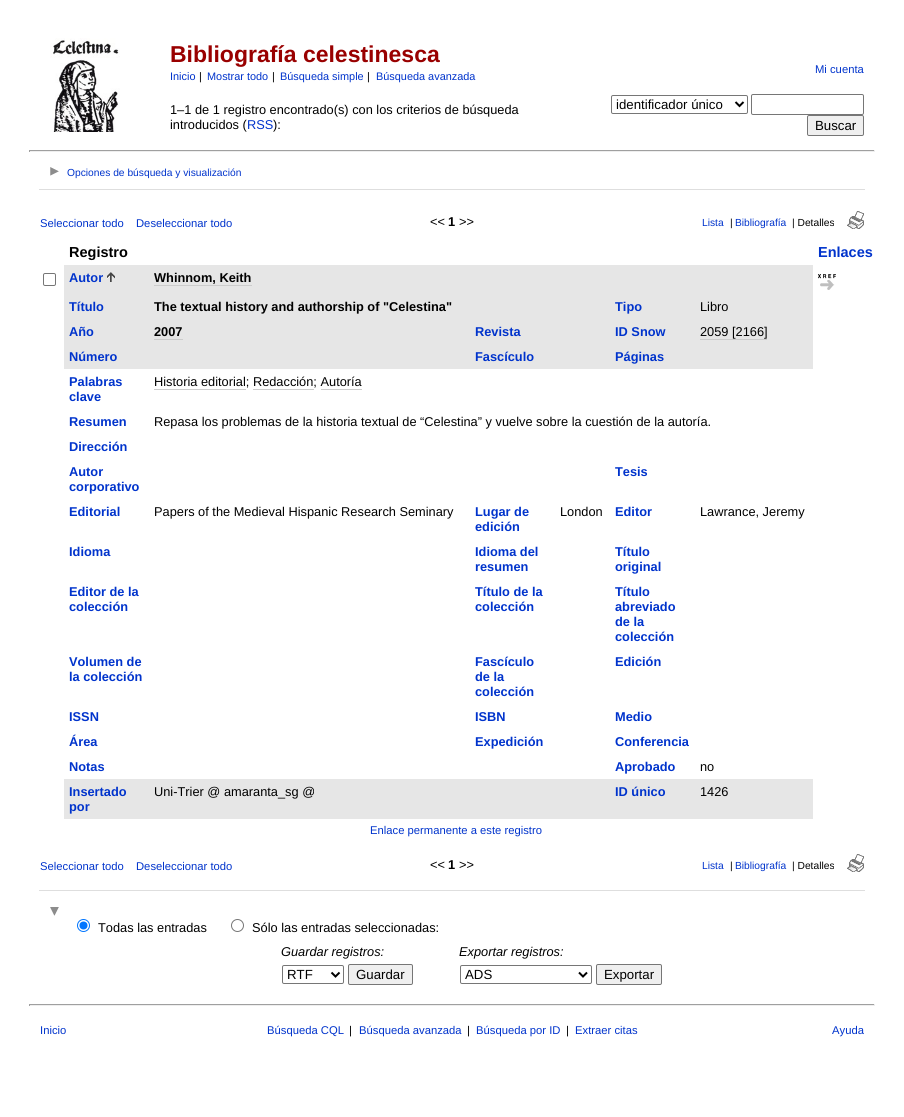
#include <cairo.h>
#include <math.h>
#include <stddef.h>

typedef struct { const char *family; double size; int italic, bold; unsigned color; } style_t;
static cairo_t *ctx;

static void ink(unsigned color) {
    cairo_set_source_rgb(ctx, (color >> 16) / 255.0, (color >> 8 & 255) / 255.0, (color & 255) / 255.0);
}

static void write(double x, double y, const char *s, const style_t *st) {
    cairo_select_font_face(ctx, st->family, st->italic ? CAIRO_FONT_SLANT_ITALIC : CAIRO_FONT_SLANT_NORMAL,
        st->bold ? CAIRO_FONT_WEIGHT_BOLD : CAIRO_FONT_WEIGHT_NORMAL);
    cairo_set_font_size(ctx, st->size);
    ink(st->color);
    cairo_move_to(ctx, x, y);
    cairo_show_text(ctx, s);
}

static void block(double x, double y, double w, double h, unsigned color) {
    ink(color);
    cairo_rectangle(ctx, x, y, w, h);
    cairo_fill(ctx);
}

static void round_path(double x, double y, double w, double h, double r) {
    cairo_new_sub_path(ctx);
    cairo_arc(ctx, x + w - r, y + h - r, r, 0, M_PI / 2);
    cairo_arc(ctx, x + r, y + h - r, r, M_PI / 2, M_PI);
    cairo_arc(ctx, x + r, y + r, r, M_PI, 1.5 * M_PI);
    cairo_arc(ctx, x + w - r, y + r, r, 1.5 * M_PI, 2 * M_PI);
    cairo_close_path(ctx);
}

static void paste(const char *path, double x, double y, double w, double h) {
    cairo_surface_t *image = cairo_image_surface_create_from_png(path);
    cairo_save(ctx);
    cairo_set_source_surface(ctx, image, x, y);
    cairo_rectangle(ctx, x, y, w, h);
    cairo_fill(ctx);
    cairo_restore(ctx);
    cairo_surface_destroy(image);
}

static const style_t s1 = {"Liberation Sans", 23, 0, 1, 0x990000};
static const style_t s2 = {"Liberation Sans", 10.9, 0, 0, 0x0033cc};
static const style_t s3 = {"Liberation Sans", 10.9, 0, 0, 0x000000};
static const style_t s4 = {"Liberation Sans", 11.25, 0, 0, 0x0033cc};
static const style_t s5 = {"Liberation Sans", 13.25, 0, 0, 0x000000};
static const style_t s6 = {"Liberation Sans", 12.8, 0, 0, 0x000000};
static const style_t s7 = {"Liberation Sans", 12.8, 0, 0, 0x0033cc};
static const style_t s8 = {"Liberation Sans", 10.25, 0, 0, 0x0033cc};
static const style_t s9 = {"Liberation Sans", 12.8, 0, 1, 0x000000};
static const style_t s10 = {"Liberation Sans", 10.25, 0, 0, 0x000000};
static const style_t s11 = {"Liberation Sans", 14.5, 0, 1, 0x000000};
static const style_t s12 = {"Liberation Sans", 14.5, 0, 1, 0x0033cc};
static const style_t s13 = {"Liberation Sans", 12.8, 0, 1, 0x0033cc};
static const style_t s14 = {"Liberation Sans", 12.8, 1, 0, 0x000000};
static const style_t s15 = {"Liberation Sans", 11.25, 0, 0, 0x000000};

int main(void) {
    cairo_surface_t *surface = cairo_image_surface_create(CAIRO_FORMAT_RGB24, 904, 1117);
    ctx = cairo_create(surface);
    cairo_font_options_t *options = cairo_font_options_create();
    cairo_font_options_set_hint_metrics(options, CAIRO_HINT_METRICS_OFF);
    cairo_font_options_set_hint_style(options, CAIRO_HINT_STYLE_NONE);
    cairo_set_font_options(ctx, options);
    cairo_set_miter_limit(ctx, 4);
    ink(0xffffff);
    cairo_paint(ctx);
    paste("pic1.png", 50, 38, 70, 94);
    write(170, 62, "Bibliografía celestinesca", &s1);
    write(170, 80, "Inicio", &s2);
    write(199, 80, "|", &s3);
    write(207, 80, "Mostrar todo", &s2);
    write(272, 80, "|", &s3);
    write(280, 80, "Búsqueda simple", &s2);
    write(367, 80, "|", &s3);
    write(376, 80, "Búsqueda avanzada", &s2);
    write(815, 73, "Mi cuenta", &s4);
    round_path(611.5, 95.5, 136, 18, 1.5);
    ink(0x767676);
    cairo_set_line_width(ctx, 1);
    cairo_stroke(ctx);
    cairo_new_path(ctx);
    cairo_move_to(ctx, 735.5, 102);
    cairo_line_to(ctx, 739.5, 106);
    cairo_line_to(ctx, 743.5, 102);
    ink(0x000000);
    cairo_set_line_width(ctx, 2);
    cairo_stroke(ctx);
    write(616, 109, "identificador único", &s5);
    round_path(751.5, 94.5, 112, 20, 1.5);
    ink(0x767676);
    cairo_set_line_width(ctx, 1);
    cairo_stroke(ctx);
    ink(0xefefef);
    round_path(807.5, 115.5, 56, 20, 1.5);
    cairo_fill_preserve(ctx);
    ink(0x767676);
    cairo_stroke(ctx);
    write(815, 130, "Buscar", &s5);
    write(170, 114, "1–1 de 1 registro encontrado(s) con los criterios de búsqueda", &s6);
    write(170, 129, "introducidos (", &s6);
    write(247, 129, "RSS", &s7);
    write(273, 129, "):", &s6);
    block(29, 150, 846, 1, 0x9f9f9f);
    block(874, 150, 1, 2, 0xeeeeee);
    block(29, 151, 846, 1, 0xeeeeee);
    block(29, 150, 1, 2, 0x9f9f9f);
    paste("pic2.png", 50, 167, 9, 9);
    write(67, 176, "Opciones de búsqueda y visualización", &s8);
    block(39, 189, 826, 1, 0xdedede);
    write(40, 227, "Seleccionar todo", &s4);
    write(136, 227, "Deseleccionar todo", &s4);
    write(430, 226, "<<", &s6);
    write(448, 226, "1", &s9);
    write(459, 226, ">>", &s6);
    write(702, 226, "Lista", &s8);
    write(730, 226, "|", &s10);
    write(735, 226, "Bibliografía", &s8);
    write(792, 226, "| Detalles", &s10);
    paste("pic3.png", 847, 211, 17, 18);
    write(69, 257, "Registro", &s11);
    write(818, 257, "Enlaces", &s12);
    round_path(43.5, 273.5, 12, 12, 1.5);
    ink(0x767676);
    cairo_stroke(ctx);
    block(64, 265, 749, 29, 0xe6e6e6);
    write(69, 282, "Autor", &s13);
    paste("pic4.png", 107, 272, 8, 10);
    write(154, 282, "Whinnom, Keith", &s9);
    block(154, 285, 98, 1, 0xcccccc);
    paste("pic5.png", 818, 274, 18, 16);
    block(64, 294, 749, 25, 0xe6e6e6);
    write(69, 311, "Título", &s13);
    write(154, 311, "The textual history and authorship of \"Celestina\"", &s9);
    write(615, 311, "Tipo", &s13);
    write(700, 311, "Libro", &s6);
    block(64, 319, 749, 25, 0xe6e6e6);
    write(69, 336, "Año", &s13);
    write(154, 336, "2007", &s9);
    block(154, 339, 29, 1, 0xcccccc);
    write(475, 336, "Revista", &s13);
    write(615, 336, "ID Snow", &s13);
    write(700, 336, "2059 [2166]", &s6);
    block(700, 339, 67, 1, 0xcccccc);
    block(64, 344, 749, 25, 0xe6e6e6);
    write(69, 361, "Número", &s13);
    write(475, 361, "Fascículo", &s13);
    write(615, 361, "Páginas", &s13);
    write(69, 386, "Palabras", &s13);
    write(69, 401, "clave", &s13);
    write(154, 386, "Historia editorial; Redacción; Autoría", &s6);
    block(154, 389, 92, 1, 0xcccccc);
    block(253, 389, 61, 1, 0xcccccc);
    block(321, 389, 41, 1, 0xcccccc);
    write(69, 426, "Resumen", &s13);
    write(154, 426, "Repasa los problemas de la historia textual de “Celestina” y vuelve sobre la cuestión de la autoría.", &s6);
    write(69, 451, "Dirección", &s13);
    write(69, 476, "Autor", &s13);
    write(69, 491, "corporativo", &s13);
    write(615, 476, "Tesis", &s13);
    write(69, 516, "Editorial", &s13);
    write(154, 516, "Papers of the Medieval Hispanic Research Seminary", &s6);
    write(475, 516, "Lugar de", &s13);
    write(475, 531, "edición", &s13);
    write(560, 516, "London", &s6);
    write(615, 516, "Editor", &s13);
    write(700, 516, "Lawrance, Jeremy", &s6);
    write(69, 556, "Idioma", &s13);
    write(475, 556, "Idioma del", &s13);
    write(475, 571, "resumen", &s13);
    write(615, 556, "Título", &s13);
    write(615, 571, "original", &s13);
    write(69, 596, "Editor de la", &s13);
    write(69, 611, "colección", &s13);
    write(475, 596, "Título de la", &s13);
    write(475, 611, "colección", &s13);
    write(615, 596, "Título", &s13);
    write(615, 611, "abreviado", &s13);
    write(615, 626, "de la", &s13);
    write(615, 641, "colección", &s13);
    write(69, 666, "Volumen de", &s13);
    write(69, 681, "la colección", &s13);
    write(475, 666, "Fascículo", &s13);
    write(475, 681, "de la", &s13);
    write(475, 696, "colección", &s13);
    write(615, 666, "Edición", &s13);
    write(69, 721, "ISSN", &s13);
    write(475, 721, "ISBN", &s13);
    write(615, 721, "Medio", &s13);
    write(69, 746, "Área", &s13);
    write(475, 746, "Expedición", &s13);
    write(615, 746, "Conferencia", &s13);
    write(69, 771, "Notas", &s13);
    write(615, 771, "Aprobado", &s13);
    write(700, 771, "no", &s6);
    block(64, 779, 749, 40, 0xe6e6e6);
    write(69, 796, "Insertado", &s13);
    write(69, 811, "por", &s13);
    write(154, 796, "Uni-Trier @ amaranta_sg @", &s6);
    write(615, 796, "ID único", &s13);
    write(700, 796, "1426", &s6);
    write(370, 834, "Enlace permanente a este registro", &s4);
    write(40, 870, "Seleccionar todo", &s4);
    write(136, 870, "Deseleccionar todo", &s4);
    write(430, 869, "<<", &s6);
    write(448, 869, "1", &s9);
    write(459, 869, ">>", &s6);
    write(702, 869, "Lista", &s8);
    write(730, 869, "|", &s10);
    write(735, 869, "Bibliografía", &s8);
    write(792, 869, "| Detalles", &s10);
    paste("pic3.png", 847, 854, 17, 18);
    block(39, 890, 826, 1, 0xdedede);
    paste("pic6.png", 50, 907, 9, 9);
    cairo_arc(ctx, 83.5, 925.5, 6, 0, 2 * M_PI);
    ink(0x0075ff);
    cairo_stroke(ctx);
    cairo_arc(ctx, 83.5, 925.5, 4, 0, 2 * M_PI);
    cairo_fill(ctx);
    write(98, 932, "Todas las entradas", &s6);
    cairo_new_path(ctx);
    cairo_arc(ctx, 237.5, 925.5, 6, 0, 2 * M_PI);
    ink(0x767676);
    cairo_stroke(ctx);
    write(252, 932, "Sólo las entradas seleccionadas:", &s6);
    write(281, 956, "Guardar registros:", &s14);
    round_path(282.5, 965.5, 61, 18, 1.5);
    ink(0x767676);
    cairo_stroke(ctx);
    cairo_new_path(ctx);
    cairo_move_to(ctx, 331.5, 972.5);
    cairo_line_to(ctx, 335.5, 976.5);
    cairo_line_to(ctx, 339.5, 972.5);
    ink(0x000000);
    cairo_set_line_width(ctx, 2);
    cairo_stroke(ctx);
    write(287, 979, "RTF", &s5);
    ink(0xefefef);
    round_path(348.5, 964.5, 64, 20, 1.5);
    cairo_fill_preserve(ctx);
    ink(0x767676);
    cairo_set_line_width(ctx, 1);
    cairo_stroke(ctx);
    write(356, 979, "Guardar", &s5);
    write(459, 956, "Exportar registros:", &s14);
    round_path(460.5, 965.5, 131, 18, 1.5);
    ink(0x767676);
    cairo_stroke(ctx);
    cairo_new_path(ctx);
    cairo_move_to(ctx, 579, 972.5);
    cairo_line_to(ctx, 583, 976.5);
    cairo_line_to(ctx, 587, 972.5);
    ink(0x000000);
    cairo_set_line_width(ctx, 2);
    cairo_stroke(ctx);
    write(465, 979, "ADS", &s5);
    ink(0xefefef);
    round_path(596.5, 964.5, 65, 20, 1.5);
    cairo_fill_preserve(ctx);
    ink(0x767676);
    cairo_set_line_width(ctx, 1);
    cairo_stroke(ctx);
    write(604, 979, "Exportar", &s5);
    block(29, 1004, 846, 1, 0x9f9f9f);
    block(874, 1004, 1, 2, 0xeeeeee);
    block(29, 1005, 846, 1, 0xeeeeee);
    block(29, 1004, 1, 2, 0x9f9f9f);
    write(40, 1034, "Inicio", &s4);
    write(267, 1034, "Búsqueda CQL", &s4);
    write(349, 1034, "|", &s15);
    write(359, 1034, "Búsqueda avanzada", &s4);
    write(467, 1034, "|", &s15);
    write(476, 1034, "Búsqueda por ID", &s4);
    write(566, 1034, "|", &s15);
    write(575, 1034, "Extraer citas", &s4);
    write(832, 1034, "Ayuda", &s4);
    cairo_surface_write_to_png(surface, "screenshot.png");
    cairo_font_options_destroy(options);
    cairo_destroy(ctx);
    cairo_surface_destroy(surface);
    return 0;
}
